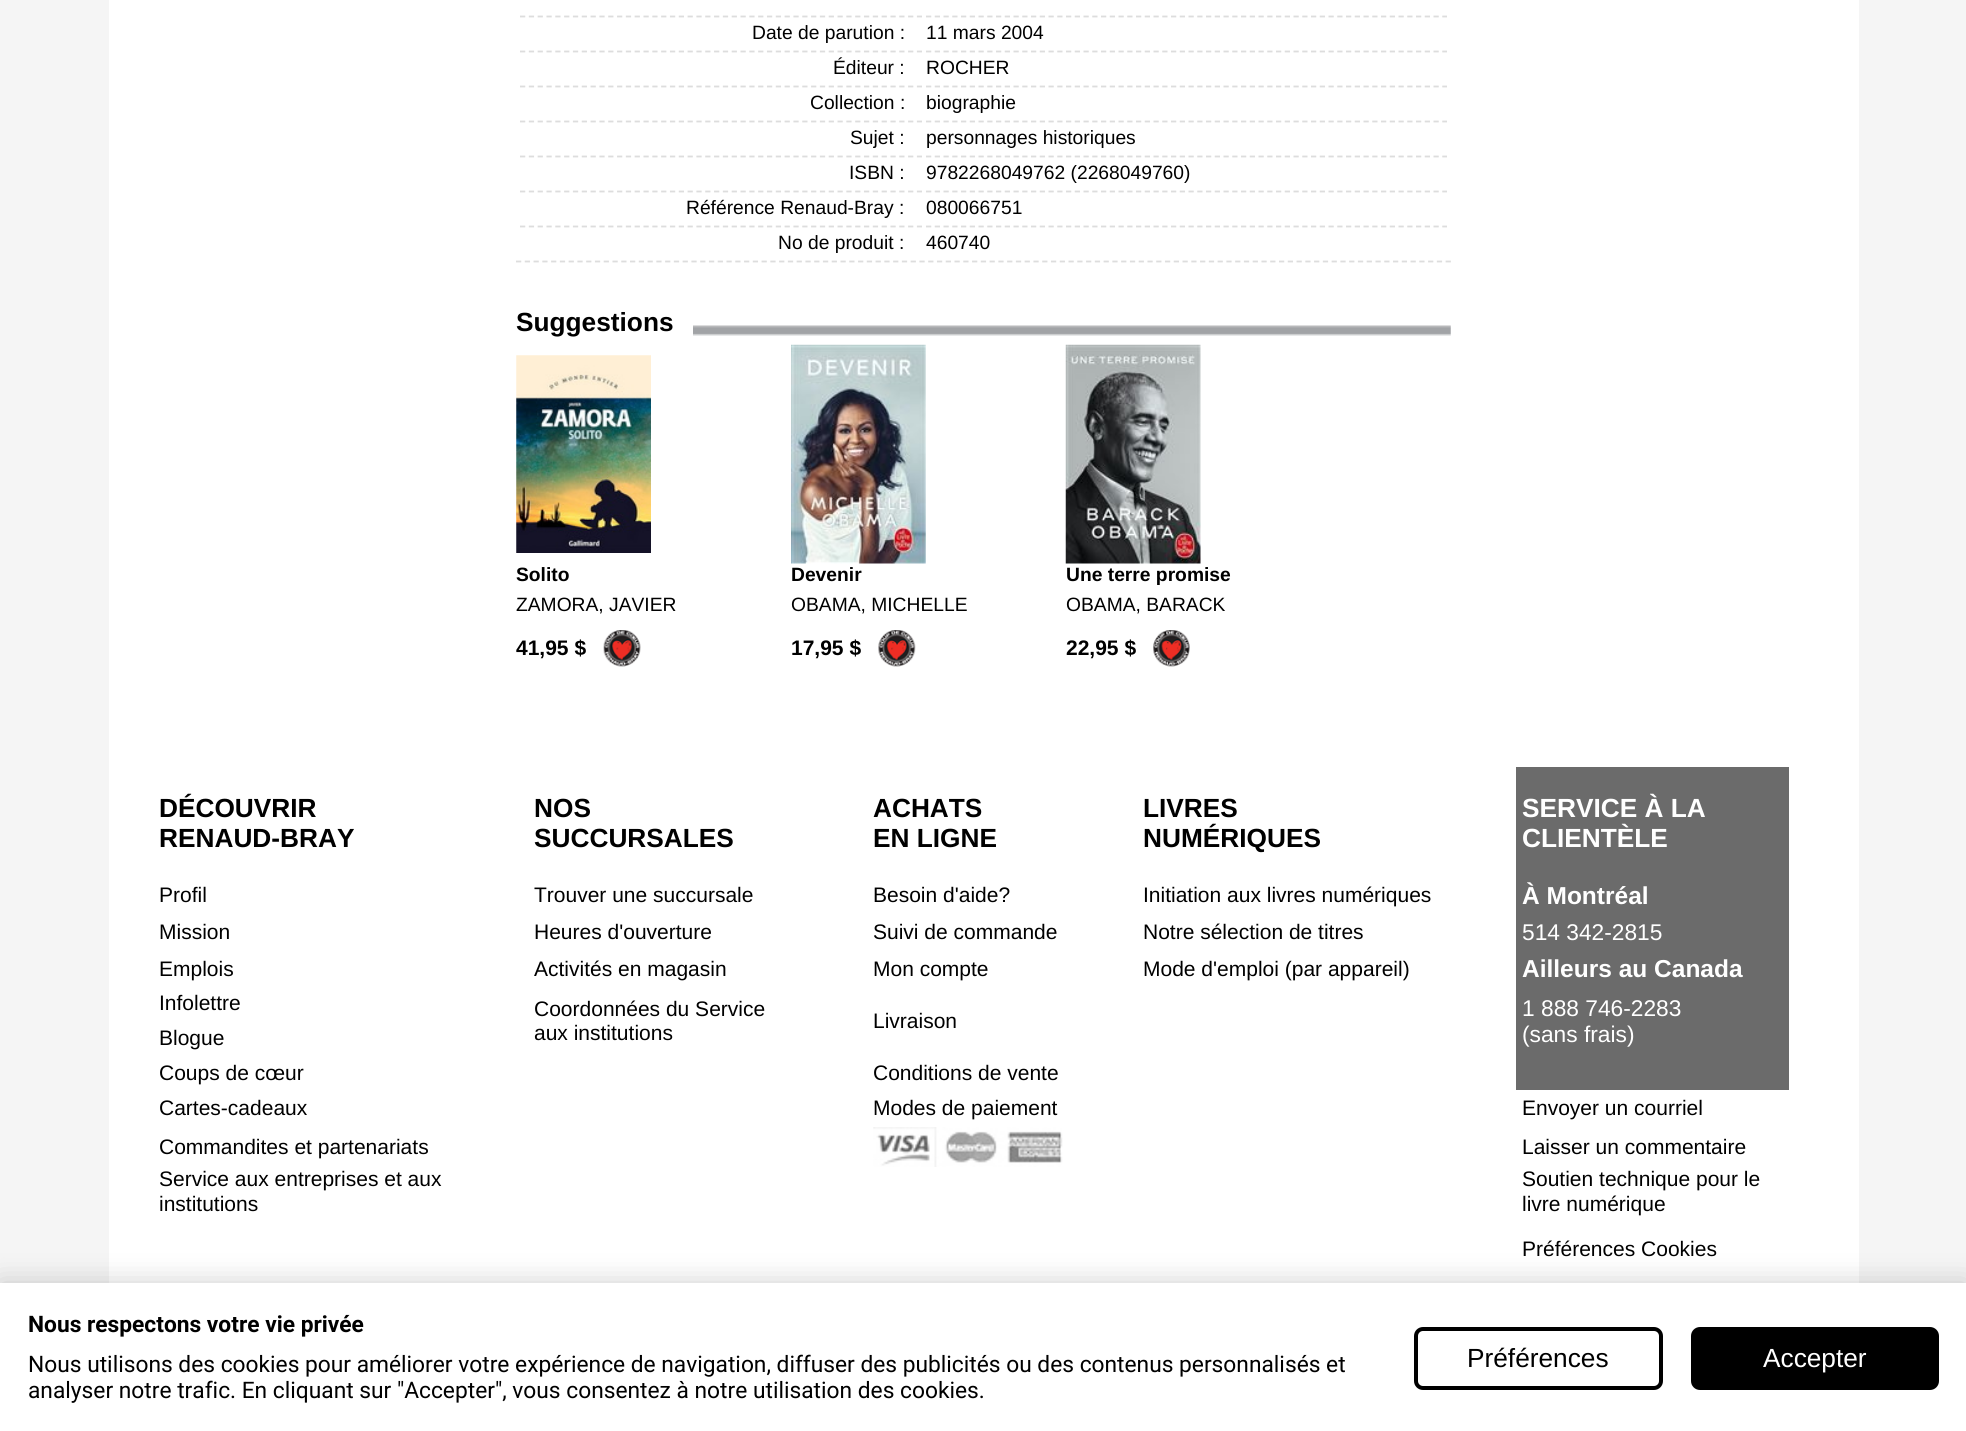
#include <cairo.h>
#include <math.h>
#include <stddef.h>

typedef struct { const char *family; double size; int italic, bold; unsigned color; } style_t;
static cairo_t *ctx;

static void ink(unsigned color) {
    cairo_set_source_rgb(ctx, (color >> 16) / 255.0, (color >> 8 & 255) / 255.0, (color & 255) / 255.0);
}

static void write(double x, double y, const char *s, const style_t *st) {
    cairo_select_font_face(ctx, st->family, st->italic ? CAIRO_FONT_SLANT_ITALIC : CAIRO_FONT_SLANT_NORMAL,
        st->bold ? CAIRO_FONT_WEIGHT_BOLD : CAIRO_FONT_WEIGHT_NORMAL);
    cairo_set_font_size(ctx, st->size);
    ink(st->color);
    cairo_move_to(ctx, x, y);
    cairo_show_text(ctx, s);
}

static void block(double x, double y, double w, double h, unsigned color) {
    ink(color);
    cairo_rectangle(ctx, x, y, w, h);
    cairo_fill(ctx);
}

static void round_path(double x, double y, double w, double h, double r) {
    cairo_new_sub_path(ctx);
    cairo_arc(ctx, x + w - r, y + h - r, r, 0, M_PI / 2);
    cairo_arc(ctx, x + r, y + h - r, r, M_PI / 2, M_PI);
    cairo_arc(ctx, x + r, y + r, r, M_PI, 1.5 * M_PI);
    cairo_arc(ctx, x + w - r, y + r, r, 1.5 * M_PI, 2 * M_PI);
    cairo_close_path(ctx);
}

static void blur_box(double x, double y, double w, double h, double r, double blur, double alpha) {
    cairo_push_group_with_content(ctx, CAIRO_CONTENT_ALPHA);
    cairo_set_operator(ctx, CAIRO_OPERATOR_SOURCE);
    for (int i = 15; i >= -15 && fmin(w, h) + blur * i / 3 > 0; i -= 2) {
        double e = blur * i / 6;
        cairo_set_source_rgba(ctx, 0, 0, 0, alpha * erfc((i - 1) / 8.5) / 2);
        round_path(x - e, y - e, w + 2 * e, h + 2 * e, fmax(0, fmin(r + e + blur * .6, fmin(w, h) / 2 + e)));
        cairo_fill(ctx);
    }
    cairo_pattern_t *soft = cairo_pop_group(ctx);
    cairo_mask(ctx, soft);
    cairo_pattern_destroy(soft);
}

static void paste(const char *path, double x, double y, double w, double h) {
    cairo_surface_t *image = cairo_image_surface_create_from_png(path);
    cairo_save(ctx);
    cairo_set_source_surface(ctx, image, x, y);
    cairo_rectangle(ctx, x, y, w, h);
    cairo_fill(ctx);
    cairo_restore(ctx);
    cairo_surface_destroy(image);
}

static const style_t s1 = {"Liberation Sans", 19.25, 0, 0, 0x000000};
static const style_t s2 = {"Liberation Sans", 26.25, 0, 1, 0x000000};
static const style_t s3 = {"Liberation Sans", 19.25, 0, 1, 0x000000};
static const style_t s4 = {"Liberation Sans", 21, 0, 1, 0x000000};
static const style_t s5 = {"Roboto", 22.75, 0, 1, 0x000000};
static const style_t s6 = {"Roboto", 22.75, 0, 0, 0x000000};
static const style_t s7 = {"Liberation Sans", 26.25, 0, 0, 0x000000};
static const style_t s8 = {"Liberation Sans", 26.25, 0, 0, 0xffffff};
static const style_t s9 = {"Liberation Sans", 26.25, 0, 1, 0xffffff};
static const style_t s10 = {"Liberation Sans", 21, 0, 0, 0x000000};
static const style_t s11 = {"Liberation Sans", 24.5, 0, 1, 0xffffff};
static const style_t s12 = {"Liberation Sans", 22.75, 0, 0, 0xffffff};

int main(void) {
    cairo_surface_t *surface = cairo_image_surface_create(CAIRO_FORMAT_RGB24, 1966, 1431);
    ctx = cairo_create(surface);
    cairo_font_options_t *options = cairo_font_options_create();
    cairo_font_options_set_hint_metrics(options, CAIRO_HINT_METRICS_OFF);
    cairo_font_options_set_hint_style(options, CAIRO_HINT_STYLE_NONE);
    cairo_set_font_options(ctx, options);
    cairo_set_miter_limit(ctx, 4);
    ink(0xf5f5f5);
    cairo_paint(ctx);
    block(109, 0, 1750, 1283, 0xffffff);
    cairo_new_path(ctx);
    cairo_move_to(ctx, 516, 261.5);
    cairo_line_to(ctx, 1451, 261.5);
    ink(0xdddddd);
    cairo_set_line_width(ctx, 1.8);
    cairo_set_dash(ctx, (double[]){5.25, 3.52}, 2, 0);
    cairo_stroke(ctx);
    cairo_new_path(ctx);
    cairo_move_to(ctx, 520, 16.5);
    cairo_line_to(ctx, 922, 16.5);
    cairo_set_dash(ctx, (double[]){5.25, 3.57}, 2, 0);
    cairo_stroke(ctx);
    write(752, 39, "Date de parution :", &s1);
    cairo_new_path(ctx);
    cairo_move_to(ctx, 926, 16.5);
    cairo_line_to(ctx, 1447, 16.5);
    ink(0xdddddd);
    cairo_set_dash(ctx, (double[]){5.25, 3.5}, 2, 0);
    cairo_stroke(ctx);
    write(926, 39, "11 mars 2004", &s1);
    cairo_new_path(ctx);
    cairo_move_to(ctx, 520, 51.5);
    cairo_line_to(ctx, 922, 51.5);
    ink(0xdddddd);
    cairo_set_dash(ctx, (double[]){5.25, 3.57}, 2, 0);
    cairo_stroke(ctx);
    write(833, 74, "Éditeur :", &s1);
    cairo_new_path(ctx);
    cairo_move_to(ctx, 926, 51.5);
    cairo_line_to(ctx, 1447, 51.5);
    ink(0xdddddd);
    cairo_set_dash(ctx, (double[]){5.25, 3.5}, 2, 0);
    cairo_stroke(ctx);
    write(926, 74, "ROCHER", &s1);
    cairo_new_path(ctx);
    cairo_move_to(ctx, 520, 86.5);
    cairo_line_to(ctx, 922, 86.5);
    ink(0xdddddd);
    cairo_set_dash(ctx, (double[]){5.25, 3.57}, 2, 0);
    cairo_stroke(ctx);
    write(810, 109, "Collection :", &s1);
    cairo_new_path(ctx);
    cairo_move_to(ctx, 926, 86.5);
    cairo_line_to(ctx, 1447, 86.5);
    ink(0xdddddd);
    cairo_set_dash(ctx, (double[]){5.25, 3.5}, 2, 0);
    cairo_stroke(ctx);
    write(926, 109, "biographie", &s1);
    cairo_new_path(ctx);
    cairo_move_to(ctx, 520, 121.5);
    cairo_line_to(ctx, 922, 121.5);
    ink(0xdddddd);
    cairo_set_dash(ctx, (double[]){5.25, 3.57}, 2, 0);
    cairo_stroke(ctx);
    write(850, 144, "Sujet :", &s1);
    cairo_new_path(ctx);
    cairo_move_to(ctx, 926, 121.5);
    cairo_line_to(ctx, 1447, 121.5);
    ink(0xdddddd);
    cairo_set_dash(ctx, (double[]){5.25, 3.5}, 2, 0);
    cairo_stroke(ctx);
    write(926, 144, "personnages historiques", &s1);
    cairo_new_path(ctx);
    cairo_move_to(ctx, 520, 156.5);
    cairo_line_to(ctx, 922, 156.5);
    ink(0xdddddd);
    cairo_set_dash(ctx, (double[]){5.25, 3.57}, 2, 0);
    cairo_stroke(ctx);
    write(849, 179, "ISBN :", &s1);
    cairo_new_path(ctx);
    cairo_move_to(ctx, 926, 156.5);
    cairo_line_to(ctx, 1447, 156.5);
    ink(0xdddddd);
    cairo_set_dash(ctx, (double[]){5.25, 3.5}, 2, 0);
    cairo_stroke(ctx);
    write(926, 179, "9782268049762 (2268049760)", &s1);
    cairo_new_path(ctx);
    cairo_move_to(ctx, 520, 191.5);
    cairo_line_to(ctx, 922, 191.5);
    ink(0xdddddd);
    cairo_set_dash(ctx, (double[]){5.25, 3.57}, 2, 0);
    cairo_stroke(ctx);
    write(686, 214, "Référence Renaud-Bray :", &s1);
    cairo_new_path(ctx);
    cairo_move_to(ctx, 926, 191.5);
    cairo_line_to(ctx, 1447, 191.5);
    ink(0xdddddd);
    cairo_set_dash(ctx, (double[]){5.25, 3.5}, 2, 0);
    cairo_stroke(ctx);
    write(926, 214, "080066751", &s1);
    cairo_new_path(ctx);
    cairo_move_to(ctx, 520, 226.5);
    cairo_line_to(ctx, 922, 226.5);
    ink(0xdddddd);
    cairo_set_dash(ctx, (double[]){5.25, 3.57}, 2, 0);
    cairo_stroke(ctx);
    write(778, 249, "No de produit :", &s1);
    cairo_new_path(ctx);
    cairo_move_to(ctx, 926, 226.5);
    cairo_line_to(ctx, 1447, 226.5);
    ink(0xdddddd);
    cairo_set_dash(ctx, (double[]){5.25, 3.5}, 2, 0);
    cairo_stroke(ctx);
    write(926, 249, "460740", &s1);
    paste("pic1.png", 693, 325, 758, 11);
    write(516, 331, "Suggestions", &s2);
    paste("pic2.png", 516, 355, 135, 198);
    write(516, 581, "Solito", &s3);
    write(516, 611, "ZAMORA, JAVIER", &s1);
    write(516, 655, "41,95 $", &s4);
    paste("pic3.png", 603, 630, 38, 37);
    paste("pic4.png", 791, 344, 135, 220);
    write(791, 581, "Devenir", &s3);
    write(791, 611, "OBAMA, MICHELLE", &s1);
    write(791, 655, "17,95 $", &s4);
    paste("pic5.png", 878, 630, 38, 37);
    paste("pic6.png", 1065, 344, 136, 220);
    write(1066, 581, "Une terre promise", &s3);
    write(1066, 611, "OBAMA, BARACK", &s1);
    write(1066, 655, "22,95 $", &s4);
    paste("pic7.png", 1153, 630, 37, 37);
    ink(0x000000);
    blur_box(0, 1283, 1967, 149, 0, 14, 0.2);
    block(0, 1283, 1966, 148, 0xffffff);
    write(28, 1332, "Nous respectons votre vie privée", &s5);
    write(28, 1372, "Nous utilisons des cookies pour améliorer votre expérience de navigation, diffuser des publicités ou des contenus personnalisés et", &s6);
    write(28, 1398, "analyser notre trafic. En cliquant sur \"Accepter\", vous consentez à notre utilisation des cookies.", &s6);
    round_path(1416, 1329, 245, 59, 7);
    cairo_set_line_width(ctx, 4);
    cairo_set_dash(ctx, NULL, 0, 0);
    cairo_stroke(ctx);
    write(1467, 1367, "Préférences", &s7);
    round_path(1693, 1329, 244, 59, 7);
    cairo_fill_preserve(ctx);
    cairo_stroke(ctx);
    write(1763, 1367, "Accepter", &s8);
    write(159, 817, "DÉCOUVRIR", &s2);
    write(159, 847, "RENAUD-BRAY", &s2);
    block(1516, 767, 273, 112, 0x6b6b6b);
    write(534, 817, "NOS", &s2);
    write(534, 847, "SUCCURSALES", &s2);
    write(873, 817, "ACHATS", &s2);
    write(873, 847, "EN LIGNE", &s2);
    write(1143, 817, "LIVRES", &s2);
    write(1143, 847, "NUMÉRIQUES", &s2);
    write(1522, 817, "SERVICE À LA", &s9);
    write(1522, 847, "CLIENTÈLE", &s9);
    block(1516, 879, 273, 33, 0x6b6b6b);
    write(159, 902, "Profil", &s10);
    write(534, 902, "Trouver une succursale", &s10);
    write(873, 902, "Besoin d'aide?", &s10);
    write(1143, 902, "Initiation aux livres numériques", &s10);
    write(1522, 904, "À Montréal", &s11);
    write(159, 939, "Mission", &s10);
    write(534, 939, "Heures d'ouverture", &s10);
    write(873, 939, "Suivi de commande", &s10);
    write(1143, 939, "Notre sélection de titres", &s10);
    block(1516, 912, 273, 40, 0x6b6b6b);
    write(1522, 940, "514 342-2815", &s12);
    block(1516, 952, 273, 33, 0x6b6b6b);
    write(159, 976, "Emplois", &s10);
    write(534, 976, "Activités en magasin", &s10);
    write(873, 976, "Mon compte", &s10);
    write(1143, 976, "Mode d'emploi (par appareil)", &s10);
    write(1522, 977, "Ailleurs au Canada", &s11);
    write(159, 1010, "Infolettre", &s10);
    write(159, 1045, "Blogue", &s10);
    write(534, 1016, "Coordonnées du Service", &s10);
    write(534, 1040, "aux institutions", &s10);
    block(1516, 985, 273, 72, 0x6b6b6b);
    write(873, 1028, "Livraison", &s10);
    write(1522, 1016, "1 888 746-2283", &s12);
    write(1522, 1042, "(sans frais)", &s12);
    write(159, 1080, "Coups de cœur", &s10);
    write(873, 1080, "Conditions de vente", &s10);
    block(1516, 1057, 273, 33, 0x6b6b6b);
    write(159, 1115, "Cartes-cadeaux", &s10);
    write(873, 1115, "Modes de paiement", &s10);
    write(1522, 1115, "Envoyer un courriel", &s10);
    write(159, 1154, "Commandites et partenariats", &s10);
    paste("pic8.png", 873, 1127, 190, 40);
    write(1522, 1154, "Laisser un commentaire", &s10);
    write(159, 1186, "Service aux entreprises et aux", &s10);
    write(159, 1211, "institutions", &s10);
    write(1522, 1186, "Soutien technique pour le", &s10);
    write(1522, 1211, "livre numérique", &s10);
    write(1522, 1256, "Préférences Cookies", &s10);
    cairo_surface_write_to_png(surface, "screenshot.png");
    cairo_font_options_destroy(options);
    cairo_destroy(ctx);
    cairo_surface_destroy(surface);
    return 0;
}
